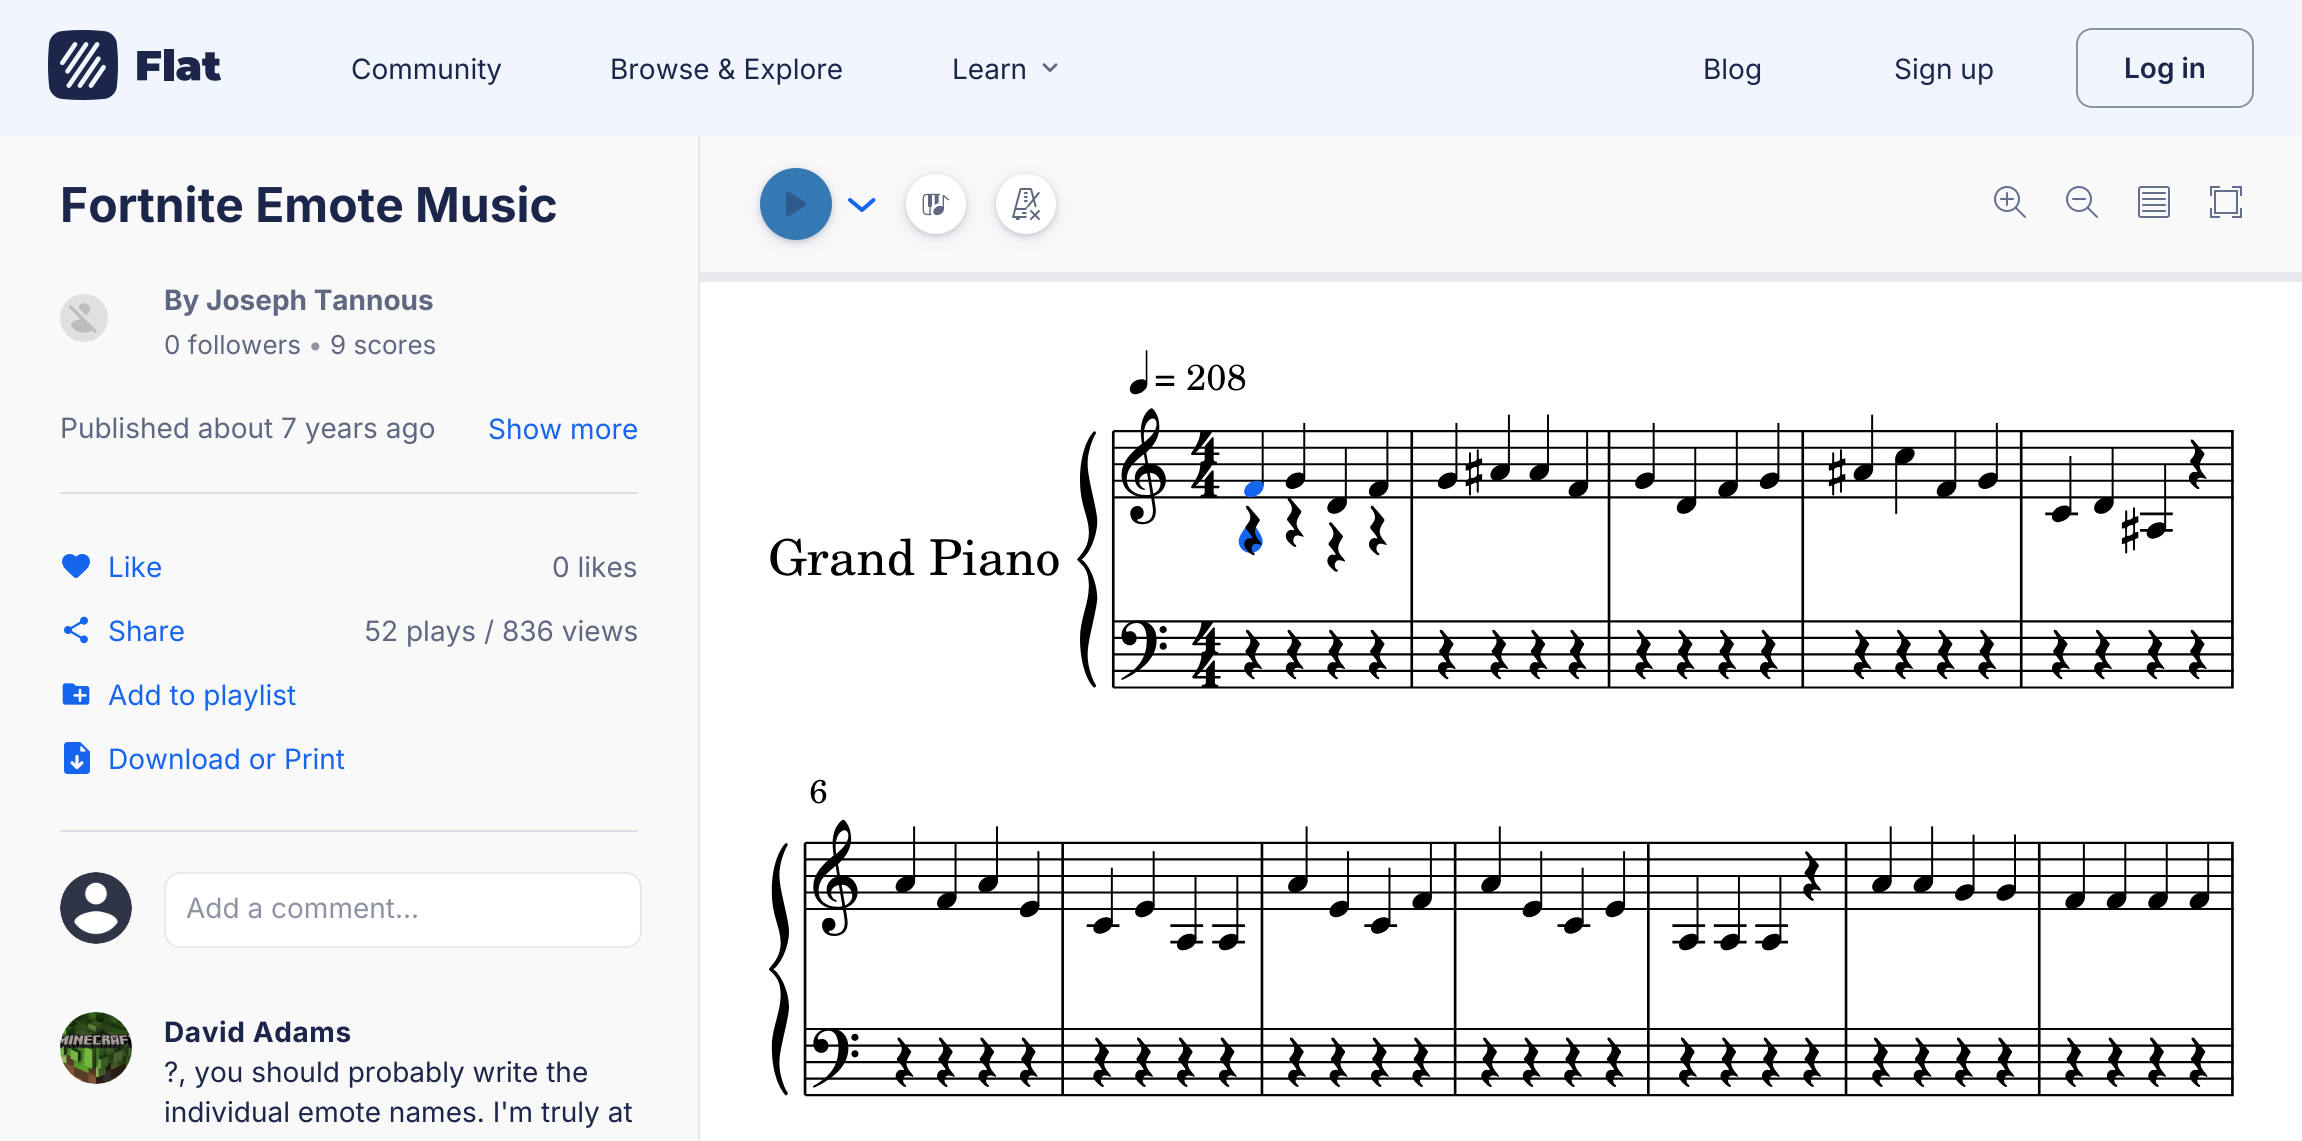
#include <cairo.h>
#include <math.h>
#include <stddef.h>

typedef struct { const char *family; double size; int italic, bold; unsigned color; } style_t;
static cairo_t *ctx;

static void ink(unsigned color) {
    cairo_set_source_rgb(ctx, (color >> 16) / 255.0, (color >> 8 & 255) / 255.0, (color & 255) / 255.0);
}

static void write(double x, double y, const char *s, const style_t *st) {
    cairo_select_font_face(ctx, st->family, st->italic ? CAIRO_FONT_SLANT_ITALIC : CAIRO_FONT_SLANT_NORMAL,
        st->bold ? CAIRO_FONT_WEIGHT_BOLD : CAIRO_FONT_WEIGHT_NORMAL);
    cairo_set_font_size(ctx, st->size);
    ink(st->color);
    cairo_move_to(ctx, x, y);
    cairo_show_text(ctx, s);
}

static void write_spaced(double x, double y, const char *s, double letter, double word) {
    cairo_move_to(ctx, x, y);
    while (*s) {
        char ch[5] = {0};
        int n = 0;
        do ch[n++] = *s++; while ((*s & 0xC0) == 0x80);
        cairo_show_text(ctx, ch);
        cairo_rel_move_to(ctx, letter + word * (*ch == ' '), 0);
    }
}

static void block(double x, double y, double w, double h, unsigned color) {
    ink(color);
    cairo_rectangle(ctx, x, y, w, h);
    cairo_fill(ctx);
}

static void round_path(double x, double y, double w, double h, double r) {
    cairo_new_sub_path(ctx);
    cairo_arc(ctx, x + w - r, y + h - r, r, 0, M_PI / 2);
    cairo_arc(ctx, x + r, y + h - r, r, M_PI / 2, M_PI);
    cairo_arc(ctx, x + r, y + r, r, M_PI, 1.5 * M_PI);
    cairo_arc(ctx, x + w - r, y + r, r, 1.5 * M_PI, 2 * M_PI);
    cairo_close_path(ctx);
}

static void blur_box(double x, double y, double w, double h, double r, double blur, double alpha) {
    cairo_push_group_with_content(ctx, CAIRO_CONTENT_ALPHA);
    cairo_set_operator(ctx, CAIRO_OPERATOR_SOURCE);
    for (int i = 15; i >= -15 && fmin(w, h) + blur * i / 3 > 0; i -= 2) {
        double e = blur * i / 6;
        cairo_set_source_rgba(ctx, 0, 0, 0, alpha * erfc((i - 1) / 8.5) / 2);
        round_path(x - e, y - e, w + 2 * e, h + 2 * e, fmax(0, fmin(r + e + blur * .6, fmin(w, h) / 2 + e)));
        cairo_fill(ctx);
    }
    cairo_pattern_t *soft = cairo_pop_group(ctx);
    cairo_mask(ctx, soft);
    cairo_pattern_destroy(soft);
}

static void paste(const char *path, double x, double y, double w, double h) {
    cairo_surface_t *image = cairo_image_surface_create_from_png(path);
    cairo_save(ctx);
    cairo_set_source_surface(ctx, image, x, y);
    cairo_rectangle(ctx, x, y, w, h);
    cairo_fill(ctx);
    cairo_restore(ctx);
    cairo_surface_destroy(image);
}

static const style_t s1 = {"Inter", 28, 0, 0, 0x1c264a};
static const style_t s2 = {"Inter SemiBold", 28, 0, 0, 0x1c264a};
static const style_t s3 = {"Inter", 48, 0, 1, 0x1c264a};
static const style_t s4 = {"Inter", 28, 0, 1, 0x5f6781};
static const style_t s5 = {"Inter", 26, 0, 0, 0x5f6781};
static const style_t s6 = {"Inter", 26, 0, 0, 0x8d93a5};
static const style_t s7 = {"Inter", 28, 0, 0, 0x5f6781};
static const style_t s8 = {"Inter", 28, 0, 0, 0x1565ef};
static const style_t s9 = {"Inter", 28, 0, 0, 0x8d93a5};

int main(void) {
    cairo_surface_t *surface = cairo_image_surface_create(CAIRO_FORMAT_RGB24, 2302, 1141);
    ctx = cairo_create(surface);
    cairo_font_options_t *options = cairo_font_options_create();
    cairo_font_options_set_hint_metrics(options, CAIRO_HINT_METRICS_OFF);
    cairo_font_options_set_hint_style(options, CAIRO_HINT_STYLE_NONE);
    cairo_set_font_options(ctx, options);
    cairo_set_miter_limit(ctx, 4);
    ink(0xffffff);
    cairo_paint(ctx);
    block(0, 0, 2302, 136, 0xf1f6fe);
    paste("pic1.png", 48, 30, 174, 70);
    write(351, 79, "Community", &s1);
    write(610, 79, "Browse & Explore", &s1);
    write(952, 79, "Learn", &s1);
    paste("pic2.png", 1042, 63, 16, 10);
    write(1703, 79, "Blog", &s1);
    write(1894, 79, "Sign up", &s1);
    round_path(2077, 29, 176, 78, 15);
    ink(0x8d93a5);
    cairo_stroke(ctx);
    write(2124, 78, "Log in", &s2);
    block(0, 136, 698, 1005, 0xf9f9fa);
    block(698, 136, 2, 1005, 0xe7e8ec);
    write(60, 222, "Fortnite Emote Music", &s3);
    paste("pic3.png", 60, 294, 48, 48);
    write(164, 310, "By Joseph Tannous", &s4);
    write(164, 354, "0 followers", &s5);
    write(308, 354, "•", &s6);
    write(330, 354, "9 scores", &s5);
    write(60, 438, "Published about 7 years ago", &s7);
    write(488, 439, "Show more", &s8);
    block(60, 492, 578, 2, 0xdbdee6);
    paste("pic4.png", 62, 554, 28, 24);
    write(108, 577, "Like", &s8);
    write(552, 577, "0 likes", &s7);
    paste("pic5.png", 64, 616, 24, 28);
    write(108, 641, "Share", &s8);
    write(364, 641, "52 plays / 836 views", &s7);
    paste("pic6.png", 62, 683, 28, 22);
    write(108, 705, "Add to playlist", &s8);
    paste("pic7.png", 64, 742, 26, 32);
    write(108, 769, "Download or Print", &s8);
    block(60, 830, 578, 2, 0xdbdee6);
    ink(0xffffff);
    cairo_new_path(ctx);
    cairo_arc(ctx, 96, 908, 36, 0, 2 * M_PI);
    cairo_fill(ctx);
    paste("pic8.png", 60, 872, 72, 72);
    round_path(165, 873, 476, 74, 15);
    cairo_fill_preserve(ctx);
    ink(0xe7e8ec);
    cairo_stroke(ctx);
    write(186, 918, "Add a comment...", &s9);
    ink(0xffffff);
    cairo_new_path(ctx);
    cairo_arc(ctx, 96, 1048, 36, 0, 2 * M_PI);
    cairo_fill(ctx);
    paste("pic9.png", 60, 1012, 72, 72);
    cairo_select_font_face(ctx, "Inter", CAIRO_FONT_SLANT_NORMAL, CAIRO_FONT_WEIGHT_BOLD);
    ink(0x1c264a);
    write_spaced(164, 1042, "David Adams", 0.6, 0);
    write(164, 1082, "?, you should probably write the", &s1);
    write(164, 1122, "individual emote names. I'm truly at", &s1);
    block(700, 136, 1602, 136, 0xf9f9fa);
    ink(0x28304f);
    blur_box(760, 170, 72, 72, 36, 3, 0.2);
    blur_box(760, 172, 72, 72, 36, 8, 0.1);
    ink(0x3579b4);
    cairo_arc(ctx, 796, 204, 36, 0, 2 * M_PI);
    cairo_fill(ctx);
    paste("pic10.png", 786, 191, 21, 26);
    cairo_new_path(ctx);
    cairo_move_to(ctx, 850, 200);
    cairo_line_to(ctx, 862, 210);
    cairo_line_to(ctx, 873.5, 200);
    ink(0x1565ef);
    cairo_set_line_width(ctx, 4);
    cairo_set_line_cap(ctx, CAIRO_LINE_CAP_ROUND);
    cairo_set_line_join(ctx, CAIRO_LINE_JOIN_ROUND);
    cairo_stroke(ctx);
    ink(0x28304f);
    blur_box(906, 176, 60, 60, 30, 3, 0.2);
    blur_box(906, 178, 60, 60, 30, 8, 0.1);
    ink(0xffffff);
    cairo_arc(ctx, 936, 204, 30, 0, 2 * M_PI);
    cairo_fill(ctx);
    paste("pic11.png", 922, 193, 28, 23);
    ink(0x28304f);
    blur_box(996, 176, 60, 60, 30, 3, 0.2);
    blur_box(996, 178, 60, 60, 30, 8, 0.1);
    ink(0xffffff);
    cairo_arc(ctx, 1026, 204, 30, 0, 2 * M_PI);
    cairo_fill(ctx);
    paste("pic12.png", 1012, 188, 28, 32);
    paste("pic13.png", 1994, 186, 32, 32);
    paste("pic14.png", 2066, 186, 32, 32);
    paste("pic15.png", 2138, 186, 32, 32);
    paste("pic16.png", 2210, 186, 32, 32);
    block(700, 272, 1602, 10, 0xe7e8ec);
    paste("pic17.png", 770, 350, 1464, 339);
    paste("pic18.png", 768, 779, 1466, 318);
    cairo_surface_write_to_png(surface, "screenshot.png");
    cairo_font_options_destroy(options);
    cairo_destroy(ctx);
    cairo_surface_destroy(surface);
    return 0;
}
